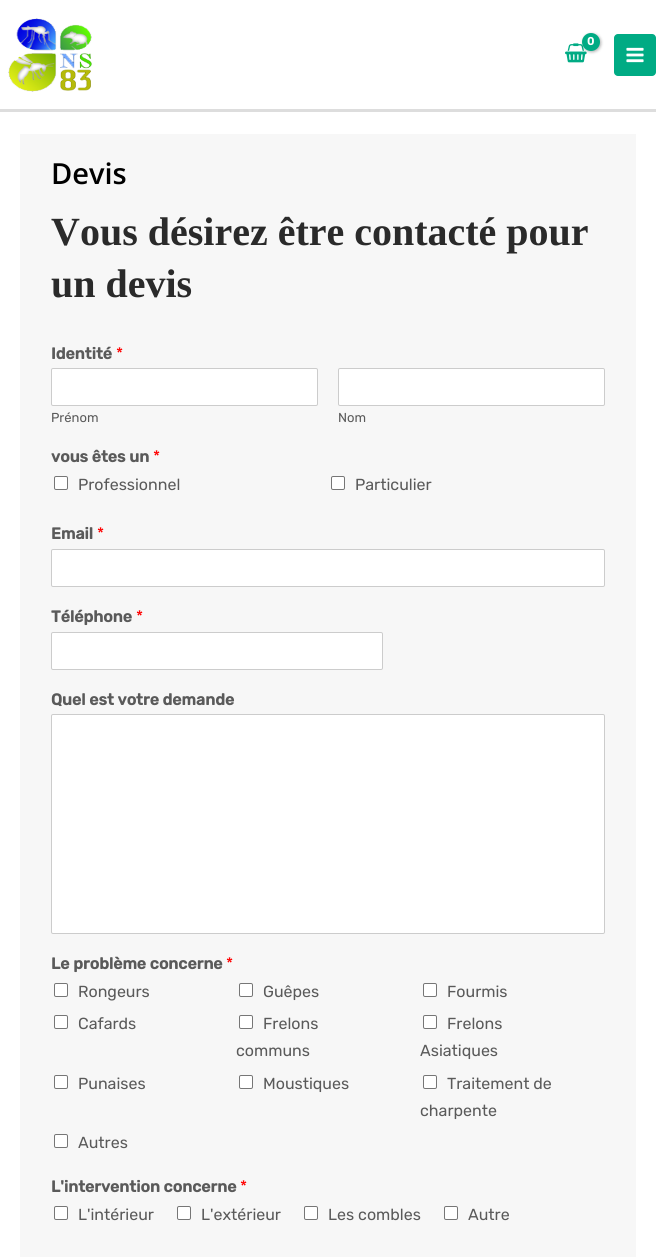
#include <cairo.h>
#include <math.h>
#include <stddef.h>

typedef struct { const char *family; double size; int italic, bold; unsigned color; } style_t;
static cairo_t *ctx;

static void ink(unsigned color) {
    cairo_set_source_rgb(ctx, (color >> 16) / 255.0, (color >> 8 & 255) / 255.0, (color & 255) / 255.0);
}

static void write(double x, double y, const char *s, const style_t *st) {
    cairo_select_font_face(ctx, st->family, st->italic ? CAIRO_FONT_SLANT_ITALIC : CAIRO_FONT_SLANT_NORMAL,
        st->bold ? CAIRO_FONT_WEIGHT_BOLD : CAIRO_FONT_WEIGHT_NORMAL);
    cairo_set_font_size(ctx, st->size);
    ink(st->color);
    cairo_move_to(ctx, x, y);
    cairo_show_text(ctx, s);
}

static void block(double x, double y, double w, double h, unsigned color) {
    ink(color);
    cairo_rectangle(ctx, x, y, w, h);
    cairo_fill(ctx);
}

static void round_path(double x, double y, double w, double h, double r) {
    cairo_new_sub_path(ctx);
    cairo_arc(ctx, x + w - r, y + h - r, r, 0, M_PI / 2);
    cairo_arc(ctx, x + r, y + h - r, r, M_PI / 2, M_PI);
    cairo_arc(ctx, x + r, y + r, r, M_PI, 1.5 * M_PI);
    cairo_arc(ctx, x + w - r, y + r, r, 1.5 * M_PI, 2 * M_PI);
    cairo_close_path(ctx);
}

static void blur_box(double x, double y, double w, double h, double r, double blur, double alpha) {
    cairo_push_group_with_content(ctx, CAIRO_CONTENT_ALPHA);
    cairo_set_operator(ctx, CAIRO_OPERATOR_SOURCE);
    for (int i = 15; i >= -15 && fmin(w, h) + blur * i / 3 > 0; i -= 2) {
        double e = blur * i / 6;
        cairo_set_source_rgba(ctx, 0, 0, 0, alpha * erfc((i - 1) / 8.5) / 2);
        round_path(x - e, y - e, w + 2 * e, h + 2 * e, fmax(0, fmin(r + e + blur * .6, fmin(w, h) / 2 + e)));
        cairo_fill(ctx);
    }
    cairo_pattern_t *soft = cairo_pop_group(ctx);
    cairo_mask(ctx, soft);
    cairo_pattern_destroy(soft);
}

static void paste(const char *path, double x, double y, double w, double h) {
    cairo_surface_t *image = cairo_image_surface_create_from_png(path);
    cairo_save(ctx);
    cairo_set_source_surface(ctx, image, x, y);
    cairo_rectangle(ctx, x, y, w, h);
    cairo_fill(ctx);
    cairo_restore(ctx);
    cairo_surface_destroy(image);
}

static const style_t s1 = {"Rubik", 11, 0, 1, 0xffffff};
static const style_t s2 = {"Open Sans SemiBold", 29, 0, 0, 0x000000};
static const style_t s3 = {"Liberation Serif", 40, 0, 1, 0x2a2a2a};
static const style_t s4 = {"Rubik", 16, 0, 1, 0x5a5a5a};
static const style_t s5 = {"Rubik", 16, 0, 0, 0xff0000};
static const style_t s6 = {"Rubik", 13, 0, 0, 0x5a5a5a};
static const style_t s7 = {"Rubik", 16, 0, 0, 0x5a5a5a};

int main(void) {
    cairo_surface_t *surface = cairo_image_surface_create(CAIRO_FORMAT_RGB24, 656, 1257);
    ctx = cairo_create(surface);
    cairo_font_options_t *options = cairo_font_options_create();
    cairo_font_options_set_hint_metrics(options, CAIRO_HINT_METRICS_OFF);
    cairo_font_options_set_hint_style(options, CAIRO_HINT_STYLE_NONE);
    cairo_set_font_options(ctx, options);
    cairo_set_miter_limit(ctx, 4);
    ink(0xffffff);
    cairo_paint(ctx);
    block(0, 109, 656, 3, 0xdddddd);
    paste("pic1.png", 8, 18, 84, 74);
    paste("pic2.png", 565, 43, 22, 20);
    ink(0x000000);
    blur_box(583, 34, 18, 18, 9, 1.5, 0.3);
    ink(0x00ab84);
    cairo_arc(ctx, 591, 42, 9, 0, 2 * M_PI);
    cairo_fill(ctx);
    write(587, 45, "0", &s1);
    ink(0x00ab84);
    round_path(614, 34, 42, 42, 4);
    cairo_fill(ctx);
    paste("pic3.png", 626, 47, 18, 16);
    block(20, 134, 616, 1123, 0xf7f7f7);
    write(51, 184, "Devis", &s2);
    write(51, 245, "Vous désirez être contacté pour", &s3);
    write(51, 297, "un devis", &s3);
    write(51, 359, "Identité", &s4);
    write(116, 359, "*", &s5);
    ink(0xffffff);
    round_path(51.5, 368.5, 266, 37, 1.5);
    cairo_fill_preserve(ctx);
    ink(0xcccccc);
    cairo_set_line_width(ctx, 1);
    cairo_stroke(ctx);
    write(51, 422, "Prénom", &s6);
    ink(0xffffff);
    round_path(338.5, 368.5, 266, 37, 1.5);
    cairo_fill_preserve(ctx);
    ink(0xcccccc);
    cairo_stroke(ctx);
    write(338, 422, "Nom", &s6);
    write(51, 462, "vous êtes un", &s4);
    write(153, 462, "*", &s5);
    ink(0xffffff);
    round_path(54.5, 476.5, 13, 13, 1.5);
    cairo_fill_preserve(ctx);
    ink(0x767676);
    cairo_stroke(ctx);
    write(78, 490, "Professionnel", &s7);
    ink(0xffffff);
    round_path(331.5, 476.5, 13, 13, 1.5);
    cairo_fill_preserve(ctx);
    ink(0x767676);
    cairo_stroke(ctx);
    write(355, 490, "Particulier", &s7);
    write(51, 539, "Email", &s4);
    write(97, 539, "*", &s5);
    ink(0xffffff);
    round_path(51.5, 549.5, 553, 37, 1.5);
    cairo_fill_preserve(ctx);
    ink(0xcccccc);
    cairo_stroke(ctx);
    write(51, 622, "Téléphone", &s4);
    write(136, 622, "*", &s5);
    ink(0xffffff);
    round_path(51.5, 632.5, 331, 37, 1.5);
    cairo_fill_preserve(ctx);
    ink(0xcccccc);
    cairo_stroke(ctx);
    write(51, 705, "Quel est votre demande", &s4);
    ink(0xffffff);
    round_path(51.5, 714.5, 553, 219, 1.5);
    cairo_fill_preserve(ctx);
    ink(0xcccccc);
    cairo_stroke(ctx);
    write(51, 969, "Le problème concerne", &s4);
    write(226, 969, "*", &s5);
    ink(0xffffff);
    round_path(54.5, 983.5, 13, 13, 1.5);
    cairo_fill_preserve(ctx);
    ink(0x767676);
    cairo_stroke(ctx);
    write(78, 997, "Rongeurs", &s7);
    ink(0xffffff);
    round_path(239.5, 983.5, 13, 13, 1.5);
    cairo_fill_preserve(ctx);
    ink(0x767676);
    cairo_stroke(ctx);
    write(263, 997, "Guêpes", &s7);
    ink(0xffffff);
    round_path(423.5, 983.5, 13, 13, 1.5);
    cairo_fill_preserve(ctx);
    ink(0x767676);
    cairo_stroke(ctx);
    write(447, 997, "Fourmis", &s7);
    ink(0xffffff);
    round_path(54.5, 1015.5, 13, 13, 1.5);
    cairo_fill_preserve(ctx);
    ink(0x767676);
    cairo_stroke(ctx);
    write(78, 1029, "Cafards", &s7);
    ink(0xffffff);
    round_path(239.5, 1015.5, 13, 13, 1.5);
    cairo_fill_preserve(ctx);
    ink(0x767676);
    cairo_stroke(ctx);
    write(263, 1029, "Frelons", &s7);
    write(236, 1056, "communs", &s7);
    ink(0xffffff);
    round_path(423.5, 1015.5, 13, 13, 1.5);
    cairo_fill_preserve(ctx);
    ink(0x767676);
    cairo_stroke(ctx);
    write(447, 1029, "Frelons", &s7);
    write(420, 1056, "Asiatiques", &s7);
    ink(0xffffff);
    round_path(54.5, 1075.5, 13, 13, 1.5);
    cairo_fill_preserve(ctx);
    ink(0x767676);
    cairo_stroke(ctx);
    write(78, 1089, "Punaises", &s7);
    ink(0xffffff);
    round_path(239.5, 1075.5, 13, 13, 1.5);
    cairo_fill_preserve(ctx);
    ink(0x767676);
    cairo_stroke(ctx);
    write(263, 1089, "Moustiques", &s7);
    ink(0xffffff);
    round_path(423.5, 1075.5, 13, 13, 1.5);
    cairo_fill_preserve(ctx);
    ink(0x767676);
    cairo_stroke(ctx);
    write(447, 1089, "Traitement de", &s7);
    write(420, 1116, "charpente", &s7);
    ink(0xffffff);
    round_path(54.5, 1134.5, 13, 13, 1.5);
    cairo_fill_preserve(ctx);
    ink(0x767676);
    cairo_stroke(ctx);
    write(78, 1148, "Autres", &s7);
    write(51, 1192, "L'intervention concerne", &s4);
    write(240, 1192, "*", &s5);
    ink(0xffffff);
    round_path(54.5, 1206.5, 13, 13, 1.5);
    cairo_fill_preserve(ctx);
    ink(0x767676);
    cairo_stroke(ctx);
    write(78, 1220, "L'intérieur", &s7);
    ink(0xffffff);
    round_path(177.5, 1206.5, 13, 13, 1.5);
    cairo_fill_preserve(ctx);
    ink(0x767676);
    cairo_stroke(ctx);
    write(201, 1220, "L'extérieur", &s7);
    ink(0xffffff);
    round_path(304.5, 1206.5, 13, 13, 1.5);
    cairo_fill_preserve(ctx);
    ink(0x767676);
    cairo_stroke(ctx);
    write(328, 1220, "Les combles", &s7);
    ink(0xffffff);
    round_path(444.5, 1206.5, 13, 13, 1.5);
    cairo_fill_preserve(ctx);
    ink(0x767676);
    cairo_stroke(ctx);
    write(468, 1220, "Autre", &s7);
    cairo_surface_write_to_png(surface, "screenshot.png");
    cairo_font_options_destroy(options);
    cairo_destroy(ctx);
    cairo_surface_destroy(surface);
    return 0;
}
